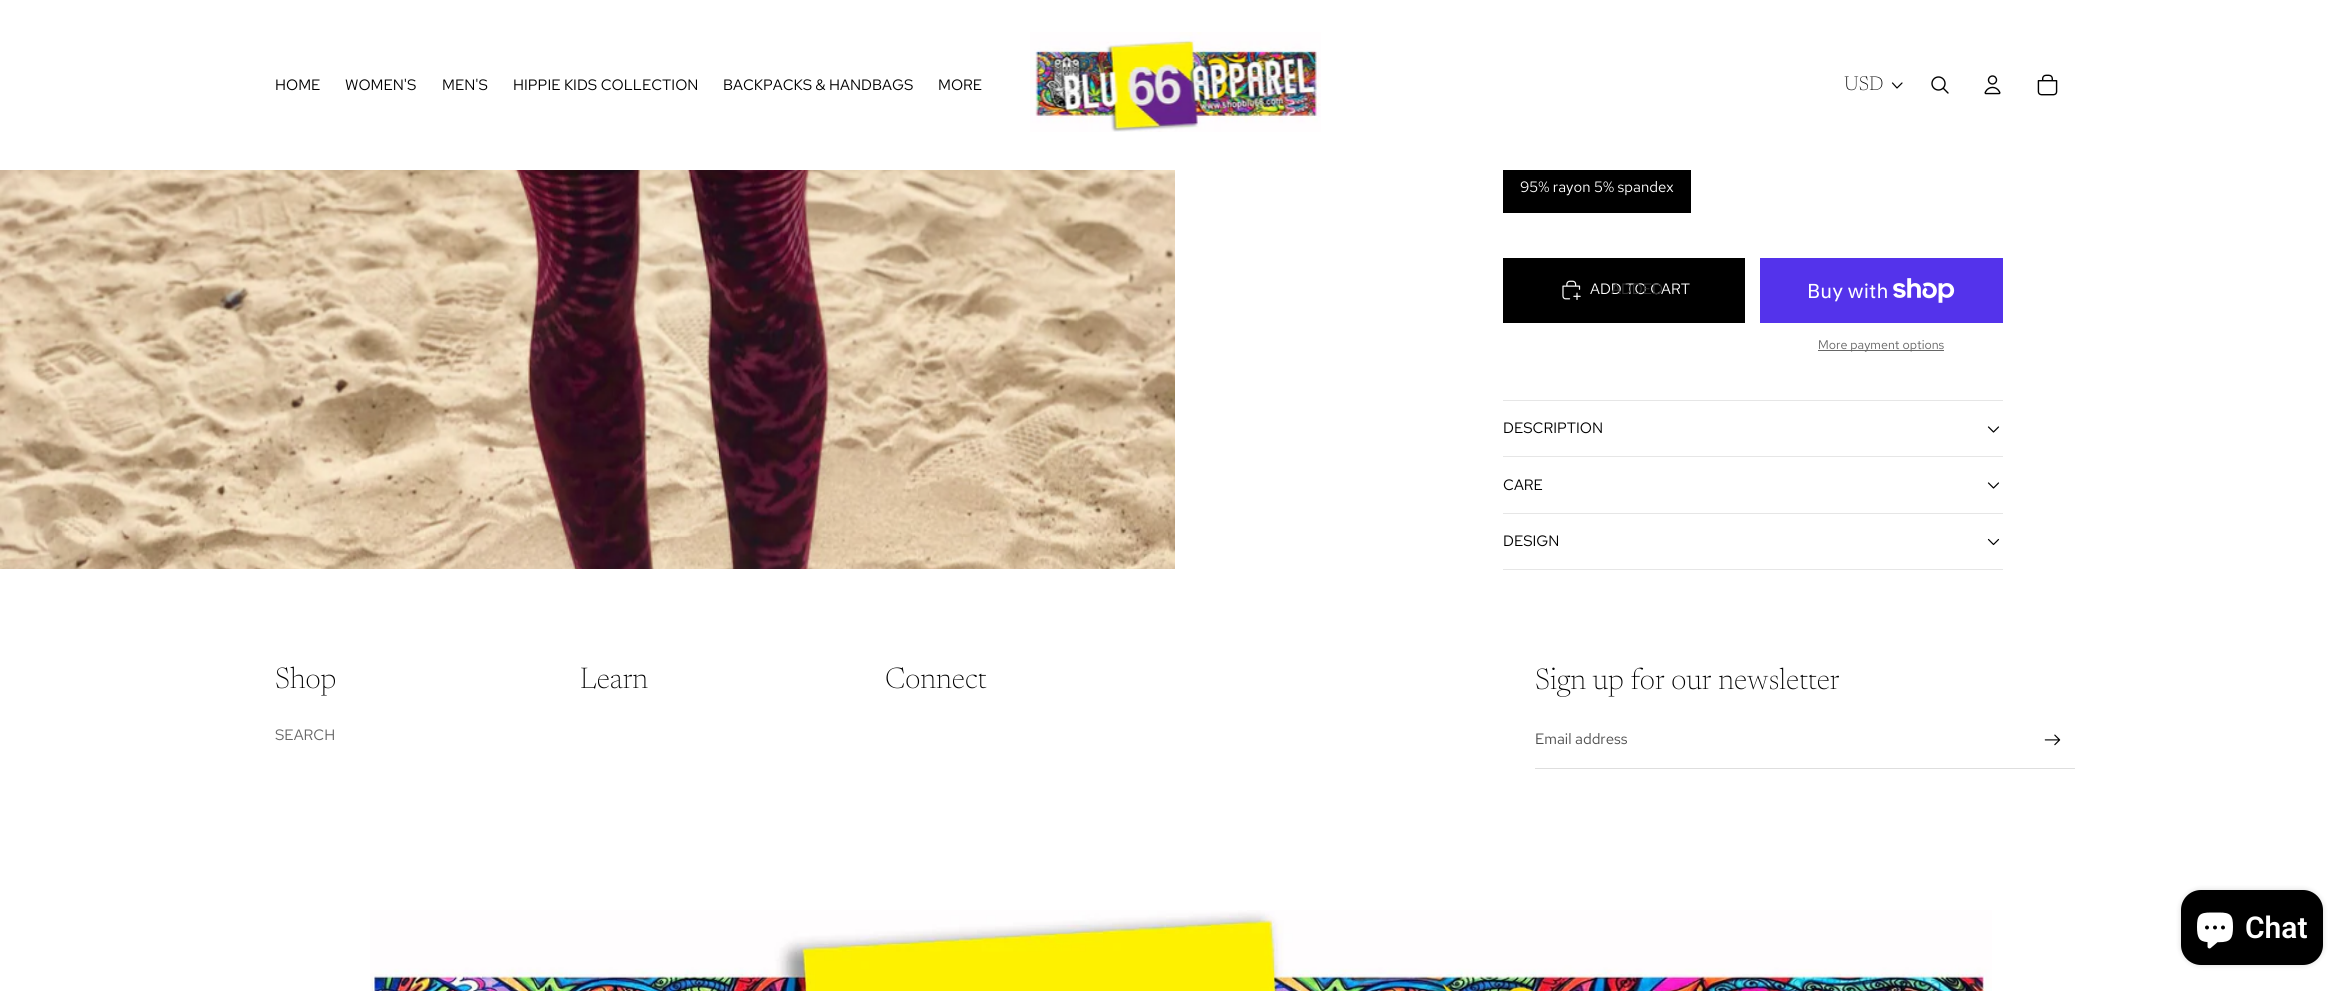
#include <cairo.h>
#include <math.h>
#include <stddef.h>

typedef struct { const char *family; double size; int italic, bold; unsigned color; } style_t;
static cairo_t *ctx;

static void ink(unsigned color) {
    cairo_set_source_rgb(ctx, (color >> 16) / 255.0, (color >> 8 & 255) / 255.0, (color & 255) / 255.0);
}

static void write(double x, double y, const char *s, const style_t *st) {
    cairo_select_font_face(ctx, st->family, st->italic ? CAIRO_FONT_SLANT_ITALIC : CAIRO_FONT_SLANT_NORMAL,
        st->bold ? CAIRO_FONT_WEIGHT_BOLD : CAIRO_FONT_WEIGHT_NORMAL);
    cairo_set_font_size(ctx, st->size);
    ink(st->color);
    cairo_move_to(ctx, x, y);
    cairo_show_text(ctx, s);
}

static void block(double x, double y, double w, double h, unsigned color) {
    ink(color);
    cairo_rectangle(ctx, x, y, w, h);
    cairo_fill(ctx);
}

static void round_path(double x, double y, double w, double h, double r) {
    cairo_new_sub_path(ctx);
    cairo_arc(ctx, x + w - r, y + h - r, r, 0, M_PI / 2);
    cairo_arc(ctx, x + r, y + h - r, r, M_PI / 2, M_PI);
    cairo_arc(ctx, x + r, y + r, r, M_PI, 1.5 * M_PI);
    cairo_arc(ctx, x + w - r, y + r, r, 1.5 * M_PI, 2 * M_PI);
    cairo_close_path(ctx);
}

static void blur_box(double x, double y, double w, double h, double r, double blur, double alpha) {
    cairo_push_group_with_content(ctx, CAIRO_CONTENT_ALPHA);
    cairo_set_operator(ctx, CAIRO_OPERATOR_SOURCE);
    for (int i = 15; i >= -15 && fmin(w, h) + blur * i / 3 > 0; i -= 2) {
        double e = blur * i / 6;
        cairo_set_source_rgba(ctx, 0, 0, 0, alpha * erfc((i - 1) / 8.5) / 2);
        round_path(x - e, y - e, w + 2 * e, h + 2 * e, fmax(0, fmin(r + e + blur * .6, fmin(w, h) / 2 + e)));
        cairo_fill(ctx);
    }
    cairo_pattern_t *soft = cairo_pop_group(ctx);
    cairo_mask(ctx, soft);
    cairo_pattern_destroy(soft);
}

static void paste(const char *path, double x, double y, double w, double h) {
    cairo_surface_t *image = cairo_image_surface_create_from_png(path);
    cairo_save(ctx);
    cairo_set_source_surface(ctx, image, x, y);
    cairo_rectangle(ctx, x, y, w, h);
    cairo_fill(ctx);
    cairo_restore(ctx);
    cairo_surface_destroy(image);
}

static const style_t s1 = {"Red Hat Text", 15, 0, 0, 0x000000};
static const style_t s2 = {"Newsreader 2 ExtraLight", 20, 0, 0, 0x000000};
static const style_t s3 = {"Red Hat Text", 15, 0, 0, 0xffffff};
static const style_t s4 = {"Red Hat Text", 15, 0, 0, 0x343434};
static const style_t s5 = {"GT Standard", 20, 0, 0, 0xffffff};
static const style_t s6 = {"Red Hat Text", 12.5, 0, 0, 0x666666};
static const style_t s7 = {"Newsreader ExtraLight", 30, 0, 0, 0x000000};
static const style_t s8 = {"Red Hat Text", 15, 0, 0, 0x666666};
static const style_t s9 = {"Red Hat Text", 15, 0, 0, 0x4d4d4d};
static const style_t s10 = {"Roboto SemiBold", 30, 0, 0, 0xffffff};

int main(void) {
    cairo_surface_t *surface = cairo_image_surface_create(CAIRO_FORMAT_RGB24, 2350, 991);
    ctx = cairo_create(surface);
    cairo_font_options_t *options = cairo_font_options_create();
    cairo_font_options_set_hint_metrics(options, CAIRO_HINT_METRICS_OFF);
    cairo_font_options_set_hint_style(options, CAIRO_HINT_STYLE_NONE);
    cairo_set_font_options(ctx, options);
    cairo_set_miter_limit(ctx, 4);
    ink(0xffffff);
    cairo_paint(ctx);
    write(275, 90, "HOME", &s1);
    write(345, 90, "WOMEN'S", &s1);
    write(442, 90, "MEN'S", &s1);
    write(513, 90, "HIPPIE KIDS COLLECTION", &s1);
    write(723, 90, "BACKPACKS & HANDBAGS", &s1);
    write(938, 90, "MORE", &s1);
    paste("pic1.png", 1030, 32, 291, 100);
    write(1844, 90, "USD", &s2);
    cairo_new_path(ctx);
    cairo_move_to(ctx, 1902, 83);
    cairo_line_to(ctx, 1897, 88);
    cairo_line_to(ctx, 1892.5, 83);
    cairo_set_line_width(ctx, 1.2);
    cairo_set_line_cap(ctx, CAIRO_LINE_CAP_ROUND);
    cairo_set_line_join(ctx, CAIRO_LINE_JOIN_ROUND);
    cairo_stroke(ctx);
    cairo_arc(ctx, 1938.5, 83.5, 6.5, 0, 2 * M_PI);
    cairo_set_line_width(ctx, 1.4);
    cairo_set_line_cap(ctx, CAIRO_LINE_CAP_BUTT);
    cairo_set_line_join(ctx, CAIRO_LINE_JOIN_MITER);
    cairo_stroke(ctx);
    cairo_new_path(ctx);
    cairo_move_to(ctx, 1943.5, 88.5);
    cairo_line_to(ctx, 1948, 93);
    cairo_set_line_cap(ctx, CAIRO_LINE_CAP_ROUND);
    cairo_set_line_join(ctx, CAIRO_LINE_JOIN_ROUND);
    cairo_stroke(ctx);
    paste("pic2.png", 1984, 75, 17, 20);
    paste("pic3.png", 2037, 74, 21, 22);
    paste("pic4.png", 0, 170, 1175, 399);
    block(1503, 170, 188, 43, 0x000000);
    write(1520, 192, "95% rayon 5% spandex", &s3);
    block(1503, 258, 242, 65, 0x000000);
    paste("pic5.png", 1562, 280, 19, 20);
    write(1590, 294, "ADD TO CART", &s3);
    write(1611, 294, "ADDED", &s4);
    block(1760, 258, 243, 65, 0x5433eb);
    write(1807, 298, "Buy with", &s5);
    paste("pic6.png", 1893, 278, 62, 25);
    block(1818, 350, 126, 1, 0x666666);
    write(1818, 349, "More payment options", &s6);
    block(1503, 400, 500, 1, 0xe6e6e6);
    write(1503, 433, "DESCRIPTION", &s1);
    block(1503, 456, 500, 1, 0xe6e6e6);
    cairo_new_path(ctx);
    cairo_move_to(ctx, 1998.5, 427);
    cairo_line_to(ctx, 1993.5, 432);
    cairo_line_to(ctx, 1988.5, 427);
    cairo_move_to(ctx, 1998.5, 483);
    cairo_line_to(ctx, 1993.5, 488);
    cairo_line_to(ctx, 1988.5, 483);
    ink(0x000000);
    cairo_set_line_width(ctx, 1.2);
    cairo_stroke(ctx);
    write(1503, 490, "CARE", &s1);
    block(1503, 513, 500, 1, 0xe6e6e6);
    block(1503, 569, 500, 1, 0xe6e6e6);
    write(1503, 546, "DESIGN", &s1);
    cairo_new_path(ctx);
    cairo_move_to(ctx, 1998.5, 539.5);
    cairo_line_to(ctx, 1993.5, 544.5);
    cairo_line_to(ctx, 1988.5, 539.5);
    cairo_stroke(ctx);
    write(275, 688, "Shop", &s7);
    write(275, 740, "SEARCH", &s8);
    write(580, 688, "Learn", &s7);
    write(885, 688, "Connect", &s7);
    write(1535, 689, "Sign up for our newsletter", &s7);
    block(1535, 768, 540, 1, 0xdedede);
    write(1535, 744, "Email address", &s9);
    paste("pic7.png", 2044, 734, 17, 12);
    paste("pic8.png", 370, 910, 1622, 81);
    ink(0x000000);
    blur_box(2181, 890, 142, 75, 20, 3, 0.15);
    ink(0x000000);
    round_path(2181, 890, 142, 75, 20);
    cairo_fill(ctx);
    paste("pic9.png", 2197, 912, 36, 37);
    write(2245, 938, "Chat", &s10);
    cairo_surface_write_to_png(surface, "screenshot.png");
    cairo_font_options_destroy(options);
    cairo_destroy(ctx);
    cairo_surface_destroy(surface);
    return 0;
}
